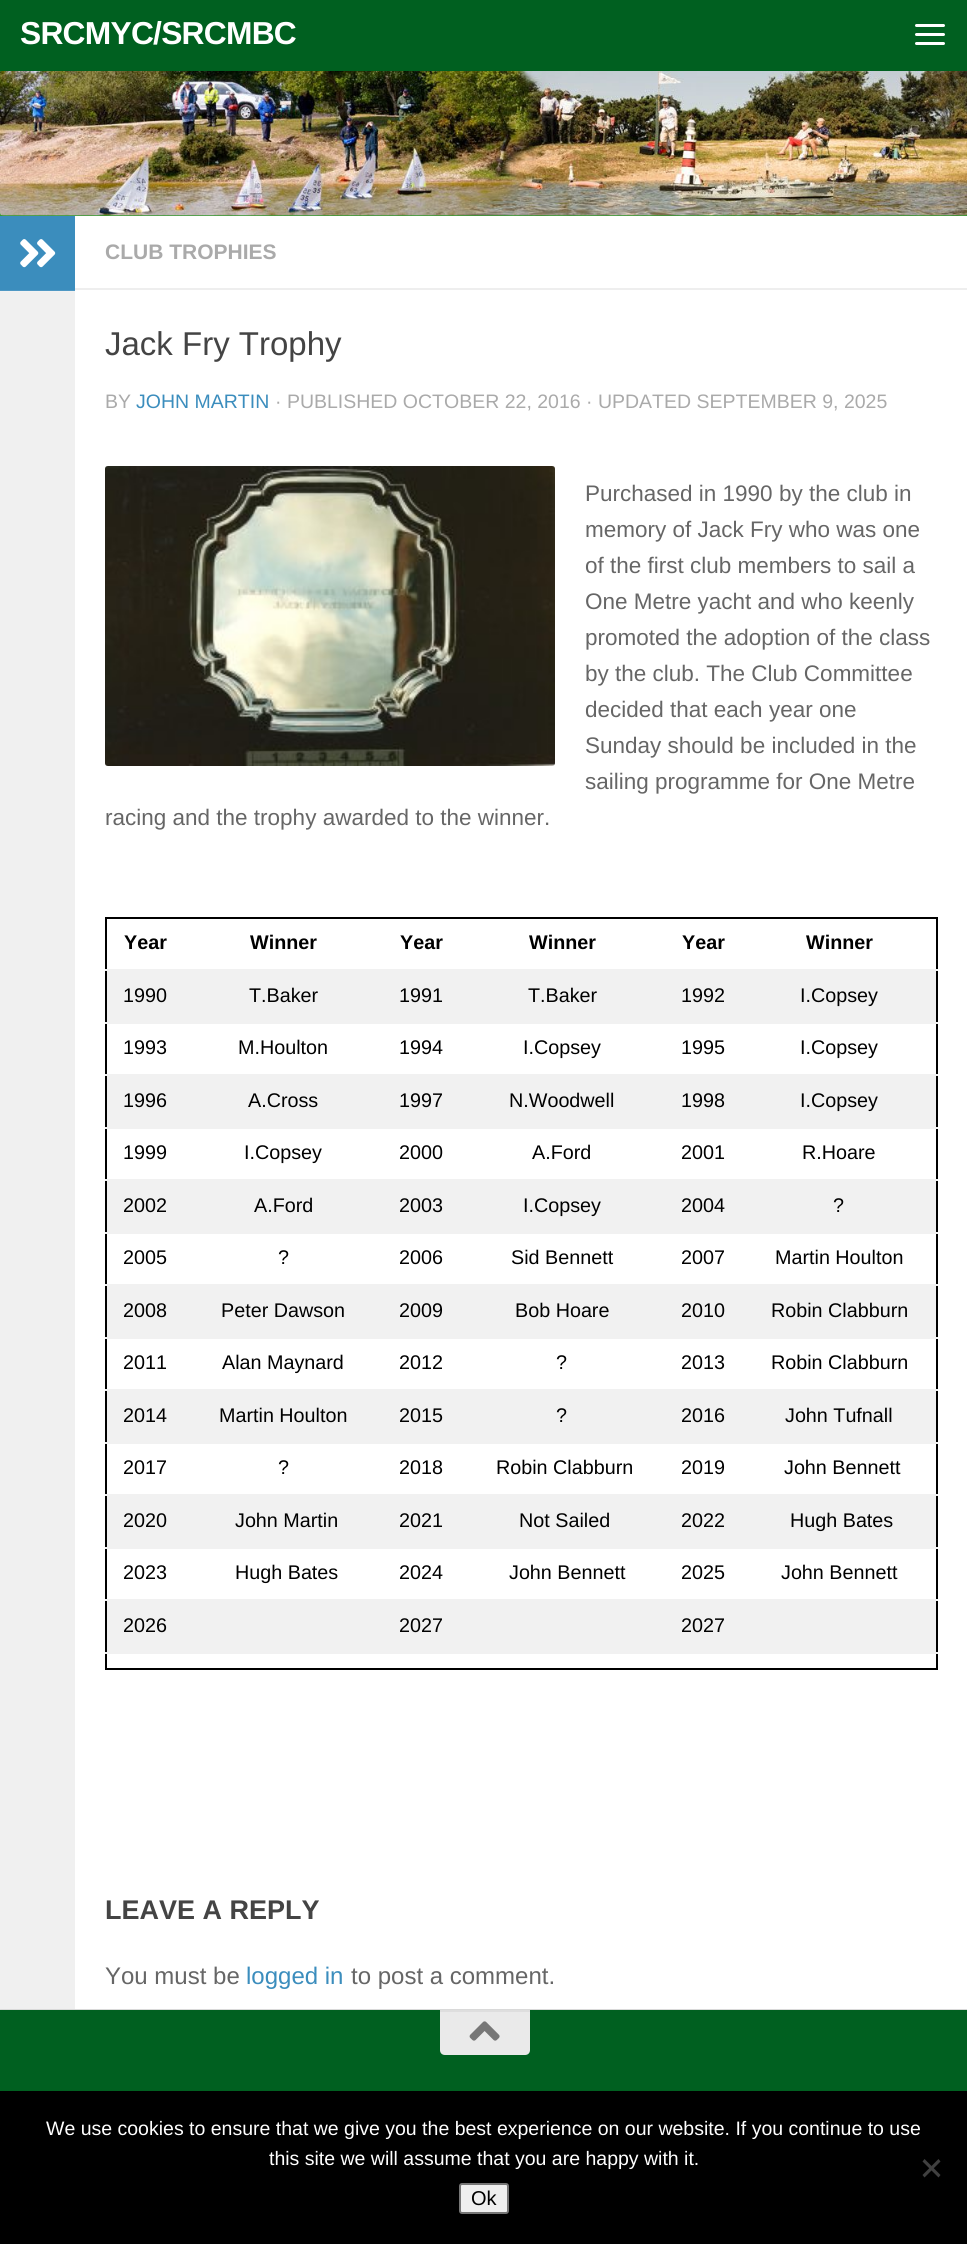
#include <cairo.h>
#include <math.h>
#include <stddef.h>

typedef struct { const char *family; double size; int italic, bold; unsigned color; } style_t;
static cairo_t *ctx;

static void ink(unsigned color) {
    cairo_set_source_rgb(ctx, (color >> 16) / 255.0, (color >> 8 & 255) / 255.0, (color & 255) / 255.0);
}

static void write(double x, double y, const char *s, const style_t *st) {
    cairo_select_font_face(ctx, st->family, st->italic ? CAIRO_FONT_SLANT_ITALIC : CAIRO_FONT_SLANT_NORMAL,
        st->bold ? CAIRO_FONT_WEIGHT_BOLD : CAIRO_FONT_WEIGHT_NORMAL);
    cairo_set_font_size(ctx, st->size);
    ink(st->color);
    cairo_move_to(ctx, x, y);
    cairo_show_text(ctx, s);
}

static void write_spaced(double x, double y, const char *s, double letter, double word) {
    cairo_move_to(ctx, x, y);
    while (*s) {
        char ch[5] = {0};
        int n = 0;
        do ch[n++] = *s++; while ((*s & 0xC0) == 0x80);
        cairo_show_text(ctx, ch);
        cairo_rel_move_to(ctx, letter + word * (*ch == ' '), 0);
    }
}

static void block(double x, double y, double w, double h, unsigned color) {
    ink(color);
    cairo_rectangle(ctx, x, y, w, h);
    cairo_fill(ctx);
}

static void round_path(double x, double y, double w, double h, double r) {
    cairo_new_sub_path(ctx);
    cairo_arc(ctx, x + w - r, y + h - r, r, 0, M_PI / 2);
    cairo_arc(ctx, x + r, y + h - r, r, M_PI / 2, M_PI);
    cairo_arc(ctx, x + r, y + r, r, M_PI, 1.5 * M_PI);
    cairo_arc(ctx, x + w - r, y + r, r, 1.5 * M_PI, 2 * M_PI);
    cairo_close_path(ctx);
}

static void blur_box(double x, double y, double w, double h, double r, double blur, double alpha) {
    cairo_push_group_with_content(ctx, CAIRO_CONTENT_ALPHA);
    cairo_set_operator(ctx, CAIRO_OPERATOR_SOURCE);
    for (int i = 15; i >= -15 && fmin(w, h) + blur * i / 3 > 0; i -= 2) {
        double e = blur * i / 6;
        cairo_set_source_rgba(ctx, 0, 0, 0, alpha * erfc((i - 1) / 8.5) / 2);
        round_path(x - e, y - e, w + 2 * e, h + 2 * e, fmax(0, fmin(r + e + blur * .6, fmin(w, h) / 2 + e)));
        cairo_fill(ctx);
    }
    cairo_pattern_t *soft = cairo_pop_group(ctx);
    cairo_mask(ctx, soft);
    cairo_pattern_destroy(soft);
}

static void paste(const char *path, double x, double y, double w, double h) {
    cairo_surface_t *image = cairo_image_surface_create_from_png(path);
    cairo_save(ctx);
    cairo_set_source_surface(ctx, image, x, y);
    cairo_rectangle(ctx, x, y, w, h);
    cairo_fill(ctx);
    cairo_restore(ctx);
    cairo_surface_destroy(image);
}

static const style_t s1 = {"Liberation Sans", 21, 0, 1, 0xaaaaaa};
static const style_t s2 = {"Liberation Sans", 33, 0, 0, 0x444444};
static const style_t s3 = {"Liberation Sans", 19.5, 0, 0, 0xaaaaaa};
static const style_t s4 = {"Liberation Sans", 19.5, 0, 0, 0x3b8dbd};
static const style_t s5 = {"Liberation Sans", 22.5, 0, 0, 0x666666};
static const style_t s6 = {"Liberation Sans", 19.75, 0, 1, 0x000000};
static const style_t s7 = {"Liberation Sans", 19.75, 0, 0, 0x000000};
static const style_t s8 = {"Liberation Sans", 27, 0, 1, 0x444444};
static const style_t s9 = {"Liberation Sans", 24, 0, 0, 0x666666};
static const style_t s10 = {"Liberation Sans", 24, 0, 0, 0x3b8dbd};
static const style_t s11 = {"Liberation Sans", 19.5, 0, 0, 0xffffff};
static const style_t s12 = {"Liberation Sans", 20, 0, 0, 0x000000};

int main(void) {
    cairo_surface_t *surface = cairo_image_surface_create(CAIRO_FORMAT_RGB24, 967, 2244);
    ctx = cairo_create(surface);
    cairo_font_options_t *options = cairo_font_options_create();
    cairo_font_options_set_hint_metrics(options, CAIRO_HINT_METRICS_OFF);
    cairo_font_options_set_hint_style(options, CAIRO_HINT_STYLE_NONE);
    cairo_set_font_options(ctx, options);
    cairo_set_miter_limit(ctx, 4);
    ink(0xeaeaea);
    cairo_paint(ctx);
    ink(0x000000);
    blur_box(0, 218, 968, 1792, 0, 1, 0.1);
    block(0, 71, 967, 145, 0x34992f);
    block(0, 0, 967, 71, 0x006020);
    cairo_select_font_face(ctx, "Liberation Sans", CAIRO_FONT_SLANT_NORMAL, CAIRO_FONT_WEIGHT_BOLD);
    cairo_set_font_size(ctx, 31.75);
    ink(0xffffff);
    write_spaced(20, 44, "SRCMYC/SRCMBC", -0.75, 0);
    round_path(915, 24, 30, 3, 1.5);
    cairo_fill(ctx);
    round_path(915, 33, 30, 3, 1.5);
    cairo_fill(ctx);
    round_path(915, 42, 30, 3, 1.5);
    cairo_fill(ctx);
    paste("pic1.png", 0, 71, 967, 145);
    block(75, 216, 892, 1793, 0xffffff);
    block(0, 292, 75, 1717, 0xf0f0f0);
    block(0, 291, 75, 1, 0xf2f2f2);
    block(0, 216, 75, 74, 0x3b8dbd);
    block(0, 290, 75, 1, 0x4f98c4);
    paste("pic2.png", 20, 239, 36, 29);
    block(75, 288, 892, 2, 0xeeeeee);
    write(105, 259, "CLUB TROPHIES", &s1);
    write(105, 355, "Jack Fry Trophy", &s2);
    write(105, 408, "BY", &s3);
    write(136, 408, "JOHN MARTIN", &s4);
    write(275, 408, "· PUBLISHED OCTOBER 22, 2016 · UPDATED SEPTEMBER 9, 2025", &s3);
    paste("pic3.png", 105, 466, 450, 300);
    write(585, 501, "Purchased in 1990 by the club in", &s5);
    write(585, 537, "memory of Jack Fry who was one", &s5);
    write(585, 573, "of the first club members to sail a", &s5);
    write(585, 609, "One Metre yacht and who keenly", &s5);
    write(585, 645, "promoted the adoption of the class", &s5);
    write(585, 681, "by the club. The Club Committee", &s5);
    write(585, 717, "decided that each year one", &s5);
    write(585, 753, "Sunday should be included in the", &s5);
    write(585, 789, "sailing programme for One Metre", &s5);
    write(105, 825, "racing and the trophy awarded to the winner.", &s5);
    block(105, 917, 833, 2, 0x000000);
    block(936, 917, 2, 753, 0x000000);
    block(105, 1668, 833, 2, 0x000000);
    block(105, 917, 2, 753, 0x000000);
    block(105, 969, 2, 2, 0xf1f1f1);
    write(124, 949, "Year", &s6);
    write(250, 949, "Winner", &s6);
    write(400, 949, "Year", &s6);
    write(529, 949, "Winner", &s6);
    write(682, 949, "Year", &s6);
    block(936, 969, 2, 2, 0xf1f1f1);
    write(806, 949, "Winner", &s6);
    block(107, 969, 829, 53, 0xf1f1f1);
    write(123, 1002, "1990", &s7);
    write(249, 1002, "T.Baker", &s7);
    write(399, 1002, "1991", &s7);
    write(528, 1002, "T.Baker", &s7);
    write(681, 1002, "1992", &s7);
    block(105, 1022, 833, 2, 0xf1f1f1);
    write(800, 1002, "I.Copsey", &s7);
    block(105, 1074, 2, 2, 0xf1f1f1);
    write(123, 1054, "1993", &s7);
    write(238, 1054, "M.Houlton", &s7);
    write(399, 1054, "1994", &s7);
    write(523, 1054, "I.Copsey", &s7);
    write(681, 1054, "1995", &s7);
    block(936, 1074, 2, 2, 0xf1f1f1);
    write(800, 1054, "I.Copsey", &s7);
    block(107, 1074, 829, 53, 0xf1f1f1);
    write(123, 1107, "1996", &s7);
    write(248, 1107, "A.Cross", &s7);
    write(399, 1107, "1997", &s7);
    write(509, 1107, "N.Woodwell", &s7);
    write(681, 1107, "1998", &s7);
    block(105, 1127, 833, 2, 0xf1f1f1);
    write(800, 1107, "I.Copsey", &s7);
    block(105, 1179, 2, 2, 0xf1f1f1);
    write(123, 1159, "1999", &s7);
    write(244, 1159, "I.Copsey", &s7);
    write(399, 1159, "2000", &s7);
    write(532, 1159, "A.Ford", &s7);
    write(681, 1159, "2001", &s7);
    block(936, 1179, 2, 2, 0xf1f1f1);
    write(802, 1159, "R.Hoare", &s7);
    block(107, 1179, 829, 53, 0xf1f1f1);
    write(123, 1212, "2002", &s7);
    write(254, 1212, "A.Ford", &s7);
    write(399, 1212, "2003", &s7);
    write(523, 1212, "I.Copsey", &s7);
    write(681, 1212, "2004", &s7);
    block(105, 1232, 833, 2, 0xf1f1f1);
    write(833, 1212, "?", &s7);
    block(105, 1284, 2, 2, 0xf1f1f1);
    write(123, 1264, "2005", &s7);
    write(278, 1264, "?", &s7);
    write(399, 1264, "2006", &s7);
    write(511, 1264, "Sid Bennett", &s7);
    write(681, 1264, "2007", &s7);
    block(936, 1284, 2, 2, 0xf1f1f1);
    write(775, 1264, "Martin Houlton", &s7);
    block(107, 1284, 829, 53, 0xf1f1f1);
    write(123, 1317, "2008", &s7);
    write(221, 1317, "Peter Dawson", &s7);
    write(399, 1317, "2009", &s7);
    write(515, 1317, "Bob Hoare", &s7);
    write(681, 1317, "2010", &s7);
    block(105, 1337, 833, 2, 0xf1f1f1);
    write(771, 1317, "Robin Clabburn", &s7);
    block(105, 1389, 2, 2, 0xf1f1f1);
    write(123, 1369, "2011", &s7);
    write(222, 1369, "Alan Maynard", &s7);
    write(399, 1369, "2012", &s7);
    write(556, 1369, "?", &s7);
    write(681, 1369, "2013", &s7);
    block(936, 1389, 2, 2, 0xf1f1f1);
    write(771, 1369, "Robin Clabburn", &s7);
    block(107, 1389, 829, 53, 0xf1f1f1);
    write(123, 1422, "2014", &s7);
    write(219, 1422, "Martin Houlton", &s7);
    write(399, 1422, "2015", &s7);
    write(556, 1422, "?", &s7);
    write(681, 1422, "2016", &s7);
    block(105, 1442, 833, 2, 0xf1f1f1);
    write(785, 1422, "John Tufnall", &s7);
    block(105, 1494, 2, 2, 0xf1f1f1);
    write(123, 1474, "2017", &s7);
    write(278, 1474, "?", &s7);
    write(399, 1474, "2018", &s7);
    write(496, 1474, "Robin Clabburn", &s7);
    write(681, 1474, "2019", &s7);
    block(936, 1494, 2, 2, 0xf1f1f1);
    write(784, 1474, "John Bennett", &s7);
    block(107, 1494, 829, 53, 0xf1f1f1);
    write(123, 1527, "2020", &s7);
    write(235, 1527, "John Martin", &s7);
    write(399, 1527, "2021", &s7);
    write(519, 1527, "Not Sailed", &s7);
    write(681, 1527, "2022", &s7);
    block(105, 1547, 833, 2, 0xf1f1f1);
    write(790, 1527, "Hugh Bates", &s7);
    block(105, 1599, 2, 2, 0xf1f1f1);
    write(123, 1579, "2023", &s7);
    write(235, 1579, "Hugh Bates", &s7);
    write(399, 1579, "2024", &s7);
    write(509, 1579, "John Bennett", &s7);
    write(681, 1579, "2025", &s7);
    block(936, 1599, 2, 2, 0xf1f1f1);
    write(781, 1579, "John Bennett", &s7);
    block(107, 1599, 829, 53, 0xf1f1f1);
    write(123, 1632, "2026", &s7);
    write(399, 1632, "2027", &s7);
    write(681, 1632, "2027", &s7);
    block(105, 1652, 833, 2, 0xf1f1f1);
    write(105, 1919, "LEAVE A REPLY", &s8);
    write(105, 1984, "You must be", &s9);
    write(246, 1984, "logged in", &s10);
    write(351, 1984, "to post a comment.", &s9);
    block(0, 2010, 967, 81, 0x006020);
    ink(0xeaeaea);
    cairo_new_path(ctx);
    cairo_move_to(ctx, 440, 2010);
    cairo_line_to(ctx, 530, 2010);
    cairo_line_to(ctx, 530, 2050);
    cairo_curve_to(ctx, 530, 2053, 528, 2055, 525, 2055);
    cairo_line_to(ctx, 445, 2055);
    cairo_curve_to(ctx, 442, 2055, 440, 2053, 440, 2050);
    cairo_close_path(ctx);
    cairo_fill(ctx);
    block(440, 2010, 90, 2, 0xdedede);
    paste("pic4.png", 469, 2021, 31, 20);
    block(0, 2091, 967, 153, 0x000000);
    write(46, 2135, "We use cookies to ensure that we give you the best experience on our website. If you continue to use", &s11);
    write(269, 2165, "this site we will assume that you are happy with it.", &s11);
    ink(0x404040);
    cairo_new_path(ctx);
    cairo_move_to(ctx, 938.5, 2159);
    cairo_line_to(ctx, 940.5, 2161.5);
    cairo_line_to(ctx, 924.5, 2177.5);
    cairo_line_to(ctx, 922.5, 2175);
    cairo_close_path(ctx);
    cairo_fill(ctx);
    cairo_new_path(ctx);
    cairo_move_to(ctx, 922.5, 2161.5);
    cairo_line_to(ctx, 924.5, 2159);
    cairo_line_to(ctx, 940.5, 2175);
    cairo_line_to(ctx, 938.5, 2177.5);
    cairo_close_path(ctx);
    cairo_fill(ctx);
    ink(0xefefef);
    round_path(460, 2184, 48, 29, 2);
    cairo_fill_preserve(ctx);
    ink(0x767676);
    cairo_stroke(ctx);
    write(471, 2205, "Ok", &s12);
    cairo_surface_write_to_png(surface, "screenshot.png");
    cairo_font_options_destroy(options);
    cairo_destroy(ctx);
    cairo_surface_destroy(surface);
    return 0;
}
